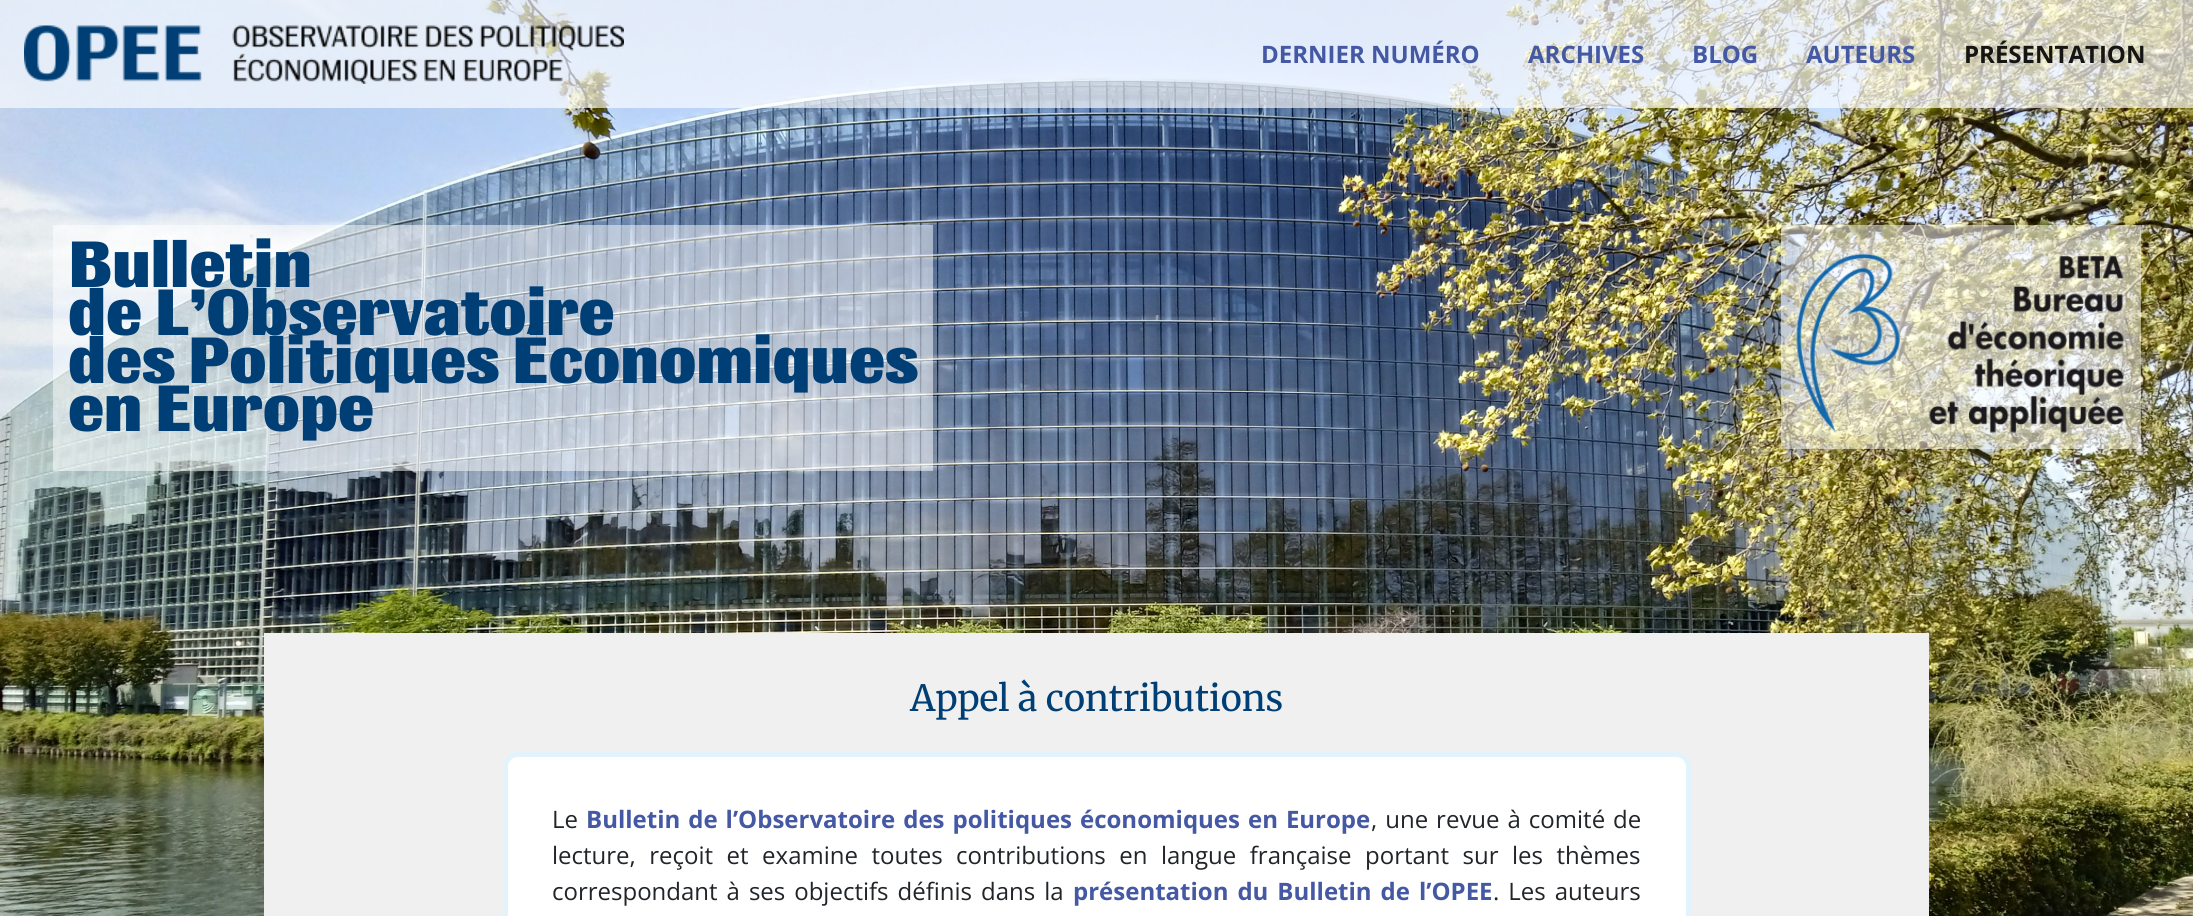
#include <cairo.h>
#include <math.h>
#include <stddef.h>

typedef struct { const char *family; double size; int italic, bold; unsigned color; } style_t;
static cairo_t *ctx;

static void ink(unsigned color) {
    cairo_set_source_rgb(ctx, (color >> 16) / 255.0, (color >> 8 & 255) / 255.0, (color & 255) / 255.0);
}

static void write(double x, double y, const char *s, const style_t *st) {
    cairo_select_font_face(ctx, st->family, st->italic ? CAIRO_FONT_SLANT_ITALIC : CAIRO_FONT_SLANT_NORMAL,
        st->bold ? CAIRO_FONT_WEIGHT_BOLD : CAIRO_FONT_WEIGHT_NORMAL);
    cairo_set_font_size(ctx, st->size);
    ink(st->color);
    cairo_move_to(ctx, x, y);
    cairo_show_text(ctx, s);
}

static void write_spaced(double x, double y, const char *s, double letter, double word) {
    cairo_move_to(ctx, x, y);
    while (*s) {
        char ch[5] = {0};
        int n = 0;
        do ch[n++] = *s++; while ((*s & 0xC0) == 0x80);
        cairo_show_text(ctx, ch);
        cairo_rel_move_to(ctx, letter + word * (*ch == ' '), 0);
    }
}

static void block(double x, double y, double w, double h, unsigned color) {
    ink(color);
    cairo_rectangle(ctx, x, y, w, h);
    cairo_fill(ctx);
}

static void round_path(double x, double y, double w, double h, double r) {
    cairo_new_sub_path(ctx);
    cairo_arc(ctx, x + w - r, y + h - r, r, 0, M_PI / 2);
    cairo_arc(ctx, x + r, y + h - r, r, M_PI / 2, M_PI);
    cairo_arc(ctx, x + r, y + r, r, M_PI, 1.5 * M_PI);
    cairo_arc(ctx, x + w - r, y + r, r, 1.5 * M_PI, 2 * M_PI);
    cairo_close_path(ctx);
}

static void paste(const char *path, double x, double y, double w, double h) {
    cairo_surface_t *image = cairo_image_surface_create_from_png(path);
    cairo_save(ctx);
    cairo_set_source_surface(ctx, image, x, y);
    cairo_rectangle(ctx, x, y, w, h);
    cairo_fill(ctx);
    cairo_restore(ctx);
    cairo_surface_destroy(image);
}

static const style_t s1 = {"Open Sans", 24, 0, 1, 0x4458a3};
static const style_t s2 = {"Open Sans", 24, 0, 1, 0x151513};
static const style_t s3 = {"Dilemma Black", 60, 0, 0, 0x003f75};
static const style_t s4 = {"Merriweather Light", 36, 0, 0, 0x003f75};
static const style_t s5 = {"Open Sans", 24, 0, 0, 0x212529};

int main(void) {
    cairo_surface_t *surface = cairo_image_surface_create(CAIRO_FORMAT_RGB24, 2193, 916);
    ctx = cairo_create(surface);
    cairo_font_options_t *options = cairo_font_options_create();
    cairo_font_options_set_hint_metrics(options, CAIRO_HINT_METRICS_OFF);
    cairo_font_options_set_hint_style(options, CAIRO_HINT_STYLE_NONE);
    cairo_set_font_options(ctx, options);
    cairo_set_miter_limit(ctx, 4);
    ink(0xffffff);
    cairo_paint(ctx);
    paste("pic1.png", 0, 0, 2193, 916);
    cairo_set_source_rgba(ctx, 1, 1, 1, 0.65);
    cairo_rectangle(ctx, 0, 0, 2193, 108);
    cairo_fill(ctx);
    paste("pic2.png", 24, 25, 600, 59);
    write(1261, 63, "DERNIER NUMÉRO", &s1);
    write(1528, 63, "ARCHIVES", &s1);
    write(1692, 63, "BLOG", &s1);
    write(1806, 63, "AUTEURS", &s1);
    write(1964, 63, "PRÉSENTATION", &s2);
    cairo_set_source_rgba(ctx, 1, 1, 1, 0.5);
    cairo_rectangle(ctx, 53, 225, 880, 246);
    cairo_fill(ctx);
    write(68, 287, "Bulletin", &s3);
    write(68, 335, "de L’Observatoire", &s3);
    write(68, 383, "des Politiques Économiques", &s3);
    write(68, 431, "en Europe", &s3);
    cairo_set_source_rgba(ctx, 1, 1, 1, 0.5);
    cairo_rectangle(ctx, 1781, 225, 360, 224);
    cairo_fill(ctx);
    paste("pic3.png", 1795, 240, 331, 194);
    block(264, 633, 1665, 283, 0xf0f0f0);
    write(910, 711, "Appel à contributions", &s4);
    ink(0xffffff);
    round_path(505.5, 754.5, 1183, 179, 12.5);
    cairo_fill_preserve(ctx);
    ink(0xe2f3fc);
    cairo_set_line_width(ctx, 5);
    cairo_stroke(ctx);
    write(552, 828, "Le", &s5);
    cairo_select_font_face(ctx, "Open Sans", CAIRO_FONT_SLANT_NORMAL, CAIRO_FONT_WEIGHT_BOLD);
    ink(0x4458a3);
    write_spaced(586, 828, "Bulletin de l’Observatoire des politiques économiques en Europe", 0, 1.75);
    cairo_select_font_face(ctx, "Open Sans", CAIRO_FONT_SLANT_NORMAL, CAIRO_FONT_WEIGHT_NORMAL);
    ink(0x212529);
    write_spaced(1371, 828, ", une revue à comité de", 0, 1.75);
    write_spaced(552, 864, "lecture, reçoit et examine toutes contributions en langue française portant sur les thèmes", 0, 7.25);
    write_spaced(552, 900, "correspondant à ses objectifs définis dans la", 0, 2.75);
    cairo_select_font_face(ctx, "Open Sans", CAIRO_FONT_SLANT_NORMAL, CAIRO_FONT_WEIGHT_BOLD);
    ink(0x4458a3);
    write_spaced(1073, 900, "présentation du Bulletin de l’OPEE", 0, 2.75);
    cairo_select_font_face(ctx, "Open Sans", CAIRO_FONT_SLANT_NORMAL, CAIRO_FONT_WEIGHT_NORMAL);
    ink(0x212529);
    write_spaced(1493, 900, ". Les auteurs", 0, 2.75);
    cairo_surface_write_to_png(surface, "screenshot.png");
    cairo_font_options_destroy(options);
    cairo_destroy(ctx);
    cairo_surface_destroy(surface);
    return 0;
}
